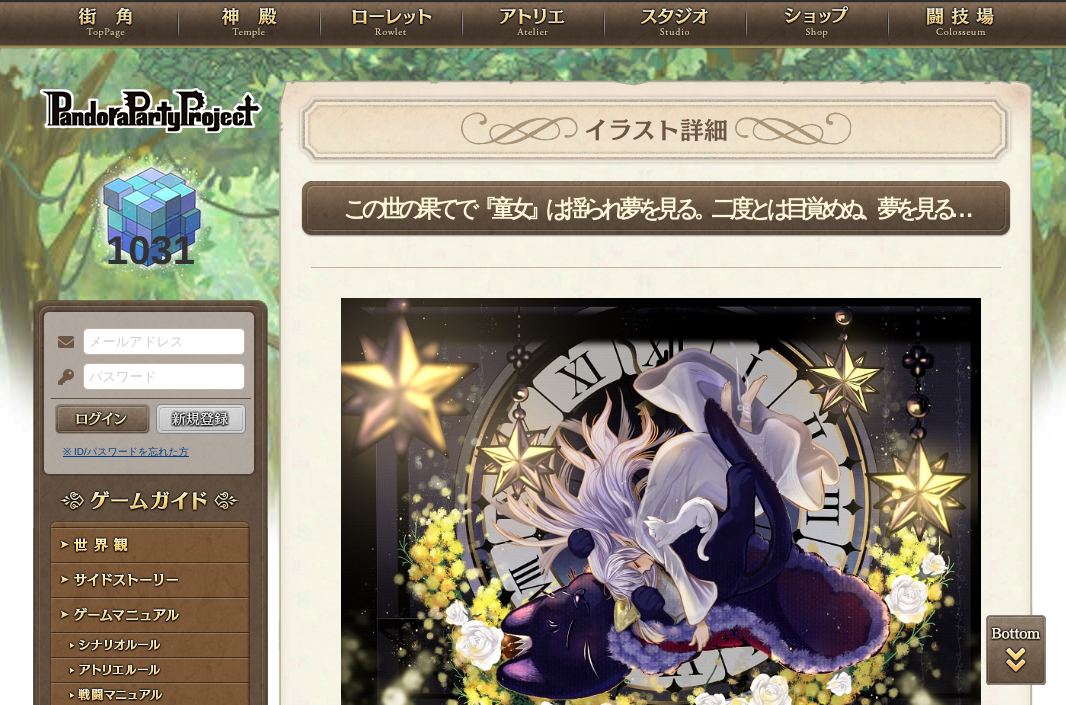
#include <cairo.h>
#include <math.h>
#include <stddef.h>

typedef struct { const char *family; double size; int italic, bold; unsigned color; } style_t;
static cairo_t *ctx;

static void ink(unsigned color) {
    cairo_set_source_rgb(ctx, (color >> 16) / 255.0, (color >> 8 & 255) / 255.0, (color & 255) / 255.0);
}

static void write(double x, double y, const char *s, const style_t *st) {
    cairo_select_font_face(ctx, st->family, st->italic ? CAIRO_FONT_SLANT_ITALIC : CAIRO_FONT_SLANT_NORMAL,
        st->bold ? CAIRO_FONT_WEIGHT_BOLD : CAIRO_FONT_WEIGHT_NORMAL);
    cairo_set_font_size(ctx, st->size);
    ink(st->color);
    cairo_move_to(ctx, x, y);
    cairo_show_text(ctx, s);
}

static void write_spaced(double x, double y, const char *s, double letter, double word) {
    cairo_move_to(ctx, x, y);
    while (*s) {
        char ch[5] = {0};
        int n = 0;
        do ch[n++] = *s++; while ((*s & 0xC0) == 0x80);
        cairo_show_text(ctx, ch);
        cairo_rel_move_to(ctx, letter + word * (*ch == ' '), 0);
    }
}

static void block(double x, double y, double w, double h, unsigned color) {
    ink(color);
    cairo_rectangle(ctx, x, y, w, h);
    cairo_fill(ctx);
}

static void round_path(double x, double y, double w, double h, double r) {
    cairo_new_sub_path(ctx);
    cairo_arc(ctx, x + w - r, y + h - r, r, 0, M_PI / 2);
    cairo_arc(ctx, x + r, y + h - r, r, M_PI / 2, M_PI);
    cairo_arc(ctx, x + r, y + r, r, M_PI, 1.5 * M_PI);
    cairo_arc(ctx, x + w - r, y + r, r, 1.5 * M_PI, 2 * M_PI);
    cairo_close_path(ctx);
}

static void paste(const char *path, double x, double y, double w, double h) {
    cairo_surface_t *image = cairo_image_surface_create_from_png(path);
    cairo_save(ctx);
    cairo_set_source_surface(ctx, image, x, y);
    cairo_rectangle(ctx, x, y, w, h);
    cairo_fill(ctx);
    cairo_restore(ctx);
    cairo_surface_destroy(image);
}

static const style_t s1 = {"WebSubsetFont", 24, 0, 1, 0x6b5744};
static const style_t s2 = {"Liberation Sans", 40, 0, 1, 0x333333};
static const style_t s3 = {"WenQuanYi Zen Hei Medium", 13.25, 0, 0, 0xcccccc};
static const style_t s4 = {"Noto Sans", 10, 0, 0, 0x003d84};
static const style_t s5 = {"Liberation Sans", 10, 0, 0, 0x003d84};
static const style_t s6 = {"WenQuanYi Zen Hei Medium", 10, 0, 0, 0x003d84};

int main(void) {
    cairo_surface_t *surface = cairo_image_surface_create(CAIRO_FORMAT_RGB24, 1066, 705);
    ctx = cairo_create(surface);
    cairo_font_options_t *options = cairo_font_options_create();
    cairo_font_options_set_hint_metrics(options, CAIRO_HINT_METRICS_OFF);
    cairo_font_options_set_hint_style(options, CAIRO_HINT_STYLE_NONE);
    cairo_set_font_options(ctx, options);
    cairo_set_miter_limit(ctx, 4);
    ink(0xffffff);
    cairo_paint(ctx);
    paste("pic1.png", 0, 48, 1066, 536);
    paste("pic2.png", 0, 0, 1066, 50);
    paste("pic3.png", 33, 2, 145, 46);
    paste("pic4.png", 37, 2, 141, 43);
    paste("pic5.png", 178, 45, 142, 3);
    paste("pic6.png", 178, 2, 142, 43);
    paste("pic7.png", 320, 45, 142, 3);
    paste("pic8.png", 320, 2, 142, 43);
    paste("pic9.png", 462, 45, 142, 3);
    paste("pic10.png", 462, 2, 142, 43);
    paste("pic11.png", 604, 45, 142, 3);
    paste("pic12.png", 604, 2, 142, 43);
    paste("pic13.png", 746, 45, 142, 3);
    paste("pic14.png", 746, 2, 142, 43);
    paste("pic15.png", 888, 2, 145, 46);
    paste("pic16.png", 888, 2, 142, 43);
    paste("pic17.png", 40, 88, 222, 45);
    paste("pic18.png", 278, 80, 755, 90);
    paste("pic19.png", 461, 112, 117, 33);
    write(584, 139, "イラスト詳細", &s1);
    paste("pic20.png", 734, 112, 118, 33);
    paste("pic21.png", 278, 170, 755, 535);
    paste("pic22.png", 301, 181, 710, 56);
    cairo_select_font_face(ctx, "WenQuanYi Zen Hei", CAIRO_FONT_SLANT_NORMAL, CAIRO_FONT_WEIGHT_BOLD);
    ink(0xfff7d9);
    write_spaced(343, 217, "この世の果てで『童女』は揺られ夢を見る。二度とは目覚めぬ、夢を見る", -5.85, 0);
    cairo_select_font_face(ctx, "Liberation Sans", CAIRO_FONT_SLANT_NORMAL, CAIRO_FONT_WEIGHT_BOLD);
    write_spaced(950, 217, "…", -6, 0);
    block(311, 267, 690, 1, 0xc7afa0);
    paste("pic23.png", 341, 298, 640, 407);
    paste("pic24.png", 33, 300, 235, 18);
    paste("pic25.png", 33, 318, 235, 160);
    paste("pic26.png", 87, 154, 127, 125);
    write(106, 264, "1031", &s2);
    paste("pic27.png", 58, 336, 16, 12);
    ink(0xffffff);
    round_path(83.5, 328.5, 161, 26, 4.5);
    cairo_fill_preserve(ctx);
    ink(0xc7afa0);
    cairo_set_line_width(ctx, 1);
    cairo_stroke(ctx);
    write(89, 346, "メールアドレス", &s3);
    paste("pic28.png", 58, 369, 16, 16);
    ink(0xffffff);
    round_path(83.5, 363.5, 161, 26, 4.5);
    cairo_fill_preserve(ctx);
    ink(0xc7afa0);
    cairo_stroke(ctx);
    write(89, 381, "パスワード", &s3);
    block(51, 398, 200, 1, 0x62503f);
    paste("pic29.png", 55, 404, 95, 30);
    paste("pic30.png", 156, 404, 90, 30);
    paste("pic31.png", 35, 468, 231, 10);
    write(63, 455, "※", &s4);
    block(63, 456, 126, 1, 0x003d84);
    write(74, 455, "ID/", &s5);
    write(87, 455, "パスワードを忘れた方", &s6);
    paste("pic32.png", 33, 478, 235, 50);
    paste("pic33.png", 33, 528, 235, 35);
    paste("pic34.png", 33, 528, 235, 35);
    paste("pic35.png", 33, 563, 235, 35);
    paste("pic36.png", 33, 563, 235, 35);
    paste("pic37.png", 33, 598, 235, 35);
    paste("pic38.png", 33, 598, 235, 35);
    paste("pic39.png", 33, 633, 235, 72);
    paste("pic40.png", 33, 633, 235, 25);
    paste("pic41.png", 33, 633, 235, 25);
    paste("pic42.png", 33, 658, 235, 25);
    paste("pic43.png", 33, 658, 235, 25);
    paste("pic44.png", 33, 683, 235, 22);
    paste("pic45.png", 33, 683, 235, 22);
    paste("pic46.png", 986, 615, 60, 70);
    cairo_surface_write_to_png(surface, "screenshot.png");
    cairo_font_options_destroy(options);
    cairo_destroy(ctx);
    cairo_surface_destroy(surface);
    return 0;
}
